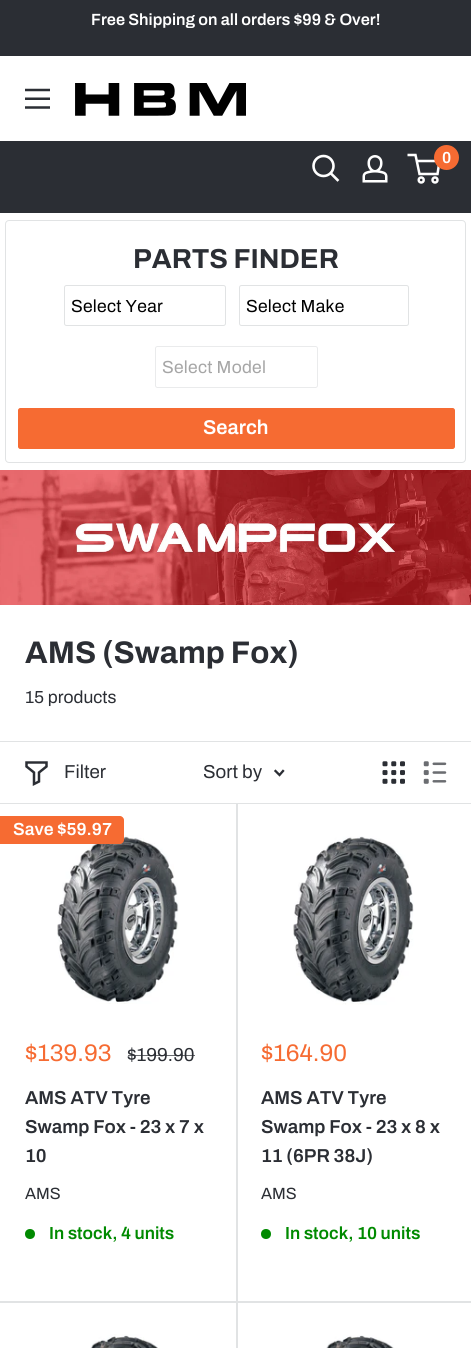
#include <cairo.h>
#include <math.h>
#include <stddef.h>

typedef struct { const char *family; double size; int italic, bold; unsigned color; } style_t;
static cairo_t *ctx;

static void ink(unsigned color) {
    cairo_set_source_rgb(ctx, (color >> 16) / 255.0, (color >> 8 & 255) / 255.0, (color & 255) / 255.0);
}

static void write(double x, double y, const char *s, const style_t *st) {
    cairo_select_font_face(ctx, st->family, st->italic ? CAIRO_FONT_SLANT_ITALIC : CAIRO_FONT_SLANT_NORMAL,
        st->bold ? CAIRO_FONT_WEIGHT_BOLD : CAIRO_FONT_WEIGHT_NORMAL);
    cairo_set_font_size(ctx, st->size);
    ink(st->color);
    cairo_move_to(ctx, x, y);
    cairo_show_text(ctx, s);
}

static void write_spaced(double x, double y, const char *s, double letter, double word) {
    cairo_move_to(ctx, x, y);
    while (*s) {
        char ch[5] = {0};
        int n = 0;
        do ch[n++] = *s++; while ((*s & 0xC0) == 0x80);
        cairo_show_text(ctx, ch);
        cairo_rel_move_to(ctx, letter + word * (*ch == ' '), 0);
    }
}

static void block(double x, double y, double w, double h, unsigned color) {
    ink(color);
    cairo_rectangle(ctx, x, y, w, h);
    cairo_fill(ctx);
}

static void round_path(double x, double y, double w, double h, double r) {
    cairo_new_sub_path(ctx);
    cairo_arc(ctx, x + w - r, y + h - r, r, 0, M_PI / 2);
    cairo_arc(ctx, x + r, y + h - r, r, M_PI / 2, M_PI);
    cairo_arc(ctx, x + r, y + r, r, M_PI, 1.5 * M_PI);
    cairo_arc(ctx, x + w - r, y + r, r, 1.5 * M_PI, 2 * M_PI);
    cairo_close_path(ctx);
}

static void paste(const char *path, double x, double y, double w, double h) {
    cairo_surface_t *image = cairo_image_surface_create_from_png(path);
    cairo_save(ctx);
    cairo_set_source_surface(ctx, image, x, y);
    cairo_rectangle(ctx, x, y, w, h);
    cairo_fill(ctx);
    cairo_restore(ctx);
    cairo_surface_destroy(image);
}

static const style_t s1 = {"Archivo SemiBold", 16.25, 0, 0, 0xffffff};
static const style_t s2 = {"Archivo SemiBold", 16, 0, 0, 0xffffff};
static const style_t s3 = {"Archivo", 27.5, 0, 1, 0x2b2e34};
static const style_t s4 = {"Archivo SemiBold", 20, 0, 0, 0xffffff};
static const style_t s5 = {"Archivo", 31.25, 0, 1, 0x2b2e34};
static const style_t s6 = {"Archivo", 17.5, 0, 0, 0x2b2e34};
static const style_t s7 = {"Archivo", 18.75, 0, 0, 0x2b2e34};
static const style_t s8 = {"Archivo SemiBold", 17.5, 0, 0, 0xffffff};
static const style_t s9 = {"Archivo", 24, 0, 0, 0xf66b32};
static const style_t s10 = {"Archivo SemiBold", 18.75, 0, 0, 0x2b2e34};
static const style_t s11 = {"Archivo", 16.25, 0, 0, 0x2b2e34};
static const style_t s12 = {"Archivo SemiBold", 17.5, 0, 0, 0x008a00};

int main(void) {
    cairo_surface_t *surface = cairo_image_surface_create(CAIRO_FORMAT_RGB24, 471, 1348);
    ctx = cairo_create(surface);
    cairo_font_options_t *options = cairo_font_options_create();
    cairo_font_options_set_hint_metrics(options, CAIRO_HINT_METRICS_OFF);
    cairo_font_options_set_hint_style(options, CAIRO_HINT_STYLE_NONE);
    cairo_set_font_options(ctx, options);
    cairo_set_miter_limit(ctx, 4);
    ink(0xffffff);
    cairo_paint(ctx);
    block(0, 0, 471, 213, 0x2b2e34);
    write(91, 25, "Free Shipping on all orders $99 & Over!", &s1);
    block(0, 56, 471, 85, 0xffffff);
    paste("pic1.png", 25, 88, 25, 21);
    paste("pic2.png", 75, 83, 171, 33);
    cairo_new_path(ctx);
    cairo_move_to(ctx, 337.5, 180);
    cairo_line_to(ctx, 331, 173.5);
    cairo_set_line_width(ctx, 2.6);
    cairo_set_line_cap(ctx, CAIRO_LINE_CAP_SQUARE);
    cairo_stroke(ctx);
    cairo_arc(ctx, 323.5, 166, 10, 0, 2 * M_PI);
    cairo_set_line_cap(ctx, CAIRO_LINE_CAP_BUTT);
    cairo_stroke(ctx);
    paste("pic3.png", 362, 155, 26, 28);
    cairo_arc(ctx, 421.2, 180, 2.5, 0, 2 * M_PI);
    cairo_set_line_width(ctx, 2.5);
    cairo_stroke(ctx);
    cairo_arc(ctx, 435, 180, 2.5, 0, 2 * M_PI);
    cairo_stroke(ctx);
    cairo_new_path(ctx);
    cairo_move_to(ctx, 416.5, 161);
    cairo_line_to(ctx, 439.5, 161);
    cairo_line_to(ctx, 437.5, 174);
    cairo_line_to(ctx, 419.5, 174);
    cairo_line_to(ctx, 415.5, 155);
    cairo_line_to(ctx, 407.5, 155);
    cairo_stroke(ctx);
    ink(0xf66b32);
    cairo_arc(ctx, 446.5, 157.5, 12.5, 0, 2 * M_PI);
    cairo_fill(ctx);
    write(442, 163, "0", &s2);
    round_path(5.5, 220.5, 460, 242, 3.5);
    ink(0xe1e3e4);
    cairo_set_line_width(ctx, 1);
    cairo_stroke(ctx);
    write(133, 268, "PARTS FINDER", &s3);
    round_path(64.5, 285.5, 161, 40, 2);
    ink(0xe1e3e4);
    cairo_stroke(ctx);
    cairo_select_font_face(ctx, "Archivo", CAIRO_FONT_SLANT_NORMAL, CAIRO_FONT_WEIGHT_NORMAL);
    cairo_set_font_size(ctx, 17.5);
    ink(0x000000);
    write_spaced(71, 312, "Select Year", 0.25, 0);
    round_path(239.5, 285.5, 169, 40, 2);
    ink(0xe1e3e4);
    cairo_stroke(ctx);
    ink(0x000000);
    write_spaced(246, 312, "Select Make", 0.25, 0);
    round_path(155.5, 346.5, 162, 41, 2);
    ink(0xeaebec);
    cairo_stroke(ctx);
    ink(0xa6a6a6);
    write_spaced(162, 373, "Select Model", 0.25, 0);
    ink(0xf66b32);
    round_path(18.5, 408.5, 436, 40, 2);
    cairo_fill_preserve(ctx);
    cairo_stroke(ctx);
    write(203, 434, "Search", &s4);
    paste("pic4.png", 0, 470, 471, 135);
    write(25, 663, "AMS (Swamp Fox)", &s5);
    write(25, 703, "15 products", &s6);
    block(0, 741, 471, 1, 0xe1e3e4);
    block(236, 803, 2, 498, 0xe1e3e4);
    block(0, 803, 471, 1, 0xe1e3e4);
    cairo_new_path(ctx);
    cairo_move_to(ctx, 46.5, 766.5);
    cairo_line_to(ctx, 39, 772.5);
    cairo_line_to(ctx, 39, 781.5);
    cairo_line_to(ctx, 34, 784);
    cairo_line_to(ctx, 34, 772.5);
    cairo_line_to(ctx, 26.5, 766.5);
    cairo_line_to(ctx, 26.5, 762.5);
    cairo_line_to(ctx, 46.5, 762.5);
    cairo_close_path(ctx);
    ink(0x2b2e34);
    cairo_set_line_width(ctx, 2.5);
    cairo_set_line_cap(ctx, CAIRO_LINE_CAP_SQUARE);
    cairo_stroke(ctx);
    write(64, 778, "Filter", &s7);
    write(203, 778, "Sort by", &s7);
    cairo_new_path(ctx);
    cairo_move_to(ctx, 283, 771);
    cairo_line_to(ctx, 279.5, 775);
    cairo_line_to(ctx, 275.5, 771);
    cairo_set_line_width(ctx, 2.3);
    cairo_stroke(ctx);
    paste("pic5.png", 382, 761, 23, 23);
    paste("pic6.png", 423, 761, 24, 23);
    block(0, 1301, 236, 2, 0xe1e3e4);
    paste("pic7.png", 57, 835, 122, 169);
    ink(0xf66b32);
    cairo_new_path(ctx);
    cairo_move_to(ctx, 0, 816);
    cairo_line_to(ctx, 120, 816);
    cairo_curve_to(ctx, 122, 816, 124, 818, 124, 820);
    cairo_line_to(ctx, 124, 840);
    cairo_curve_to(ctx, 124, 842, 122, 844, 120, 844);
    cairo_line_to(ctx, 0, 844);
    cairo_close_path(ctx);
    cairo_fill(ctx);
    write(13, 835, "Save $59.97", &s8);
    write(25, 1061, "$139.93", &s9);
    write(127, 1061, "$199.90", &s7);
    cairo_set_source_rgba(ctx, 0.169, 0.18, 0.204, 0.7);
    cairo_rectangle(ctx, 128, 1055, 67, 1);
    cairo_fill(ctx);
    write(25, 1104, "AMS ATV Tyre", &s10);
    write(25, 1133, "Swamp Fox - 23 x 7 x", &s10);
    write(25, 1162, "10", &s10);
    write(25, 1199, "AMS", &s11);
    ink(0x008a00);
    cairo_new_path(ctx);
    cairo_arc(ctx, 30, 1234, 5, 0, 2 * M_PI);
    cairo_fill(ctx);
    write(49, 1239, "In stock, 4 units", &s12);
    paste("pic8.png", 293, 836, 121, 169);
    write(261, 1061, "$164.90", &s9);
    write(261, 1104, "AMS ATV Tyre", &s10);
    write(261, 1133, "Swamp Fox - 23 x 8 x", &s10);
    write(261, 1162, "11 (6PR 38J)", &s10);
    write(261, 1199, "AMS", &s11);
    ink(0x008a00);
    cairo_new_path(ctx);
    cairo_arc(ctx, 266, 1234, 5, 0, 2 * M_PI);
    cairo_fill(ctx);
    write(285, 1239, "In stock, 10 units", &s12);
    ink(0xe1e3e4);
    cairo_new_path(ctx);
    cairo_move_to(ctx, 236, 804);
    cairo_line_to(ctx, 236, 1303);
    cairo_line_to(ctx, 471, 1303);
    cairo_line_to(ctx, 471, 1301);
    cairo_line_to(ctx, 236, 1301);
    cairo_close_path(ctx);
    cairo_fill(ctx);
    paste("pic9.png", 90, 1334, 68, 14);
    cairo_new_path(ctx);
    cairo_move_to(ctx, 1, 1301);
    cairo_line_to(ctx, 236, 1301);
    cairo_line_to(ctx, 236, 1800);
    cairo_line_to(ctx, 238, 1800);
    cairo_line_to(ctx, 238, 1301);
    cairo_close_path(ctx);
    cairo_fill(ctx);
    paste("pic10.png", 326, 1335, 68, 13);
    cairo_surface_write_to_png(surface, "screenshot.png");
    cairo_font_options_destroy(options);
    cairo_destroy(ctx);
    cairo_surface_destroy(surface);
    return 0;
}
